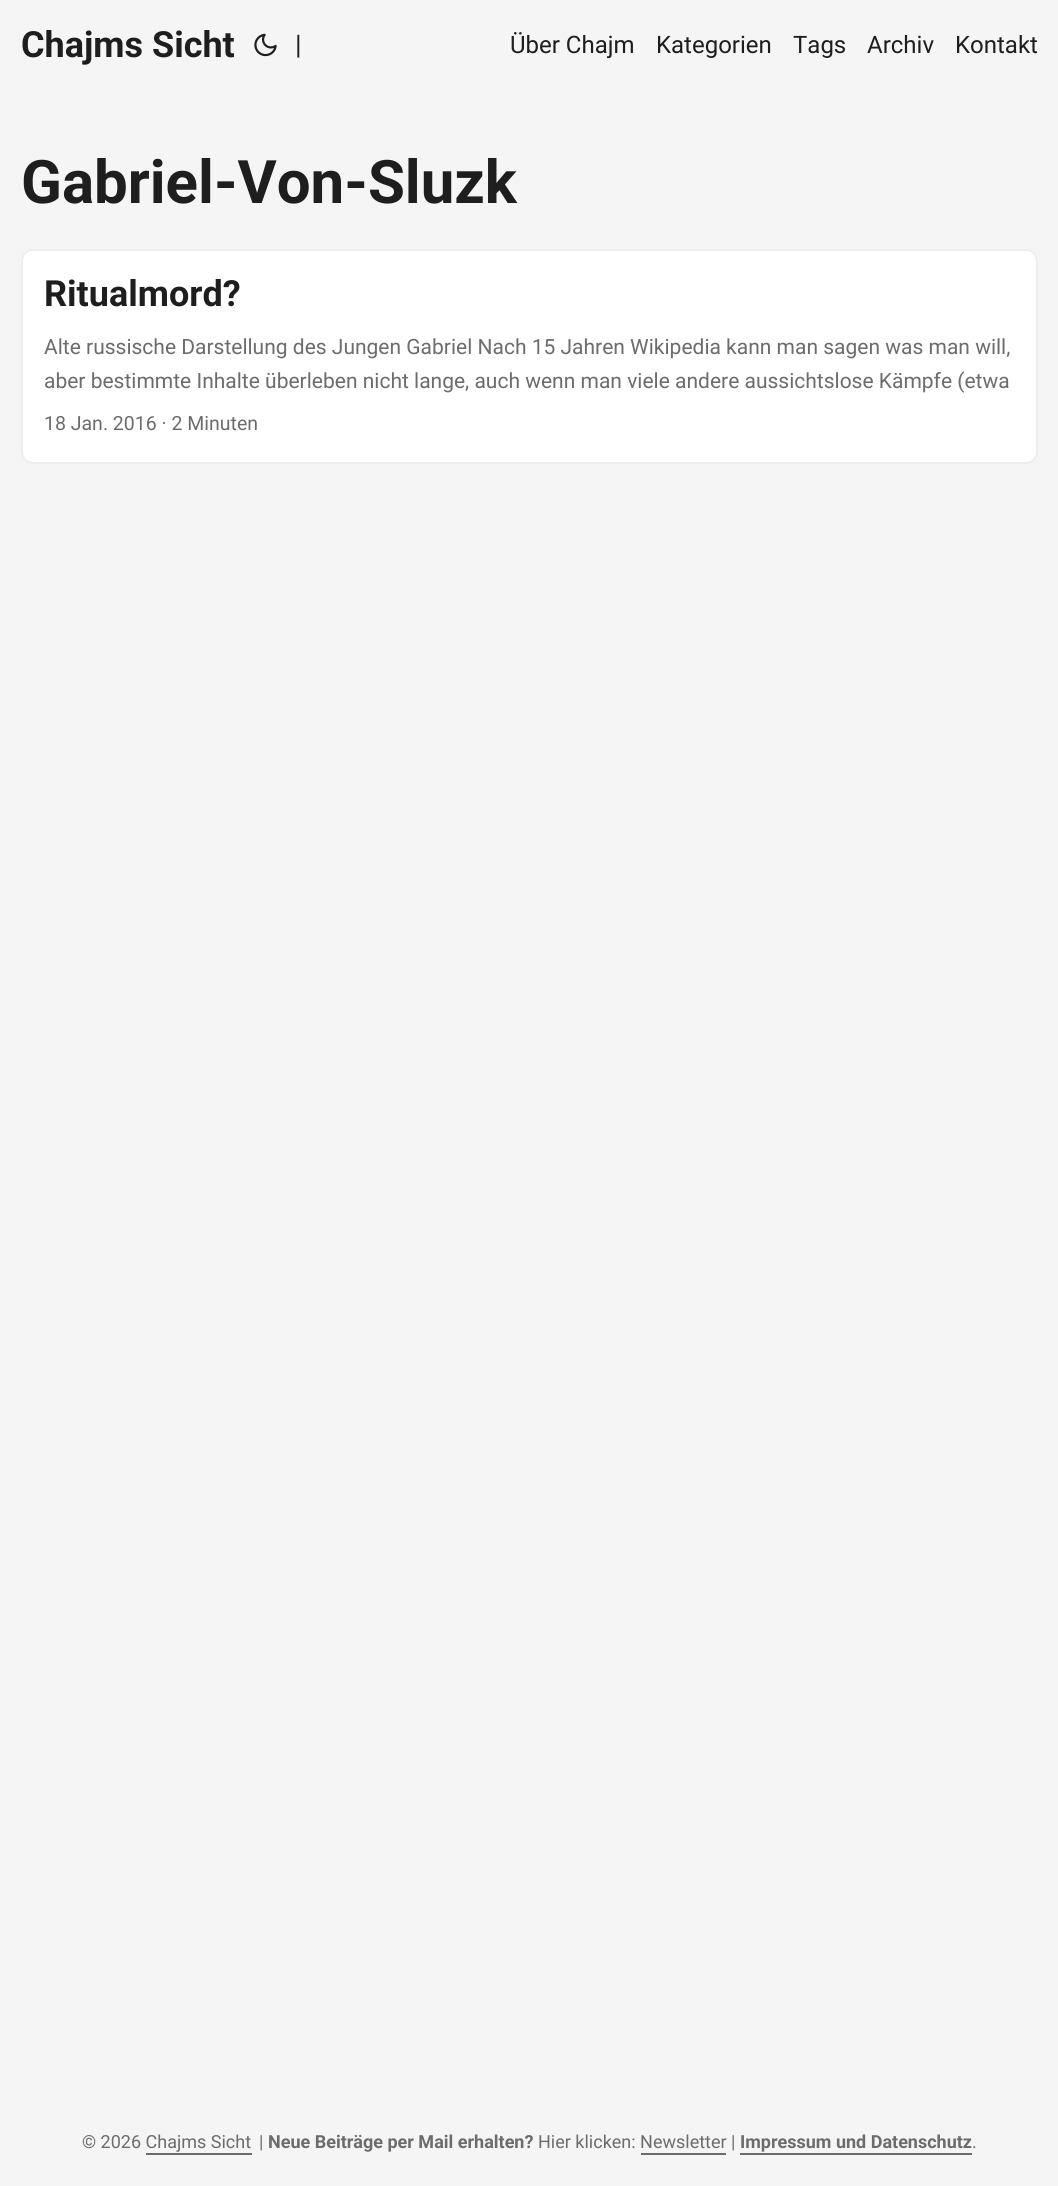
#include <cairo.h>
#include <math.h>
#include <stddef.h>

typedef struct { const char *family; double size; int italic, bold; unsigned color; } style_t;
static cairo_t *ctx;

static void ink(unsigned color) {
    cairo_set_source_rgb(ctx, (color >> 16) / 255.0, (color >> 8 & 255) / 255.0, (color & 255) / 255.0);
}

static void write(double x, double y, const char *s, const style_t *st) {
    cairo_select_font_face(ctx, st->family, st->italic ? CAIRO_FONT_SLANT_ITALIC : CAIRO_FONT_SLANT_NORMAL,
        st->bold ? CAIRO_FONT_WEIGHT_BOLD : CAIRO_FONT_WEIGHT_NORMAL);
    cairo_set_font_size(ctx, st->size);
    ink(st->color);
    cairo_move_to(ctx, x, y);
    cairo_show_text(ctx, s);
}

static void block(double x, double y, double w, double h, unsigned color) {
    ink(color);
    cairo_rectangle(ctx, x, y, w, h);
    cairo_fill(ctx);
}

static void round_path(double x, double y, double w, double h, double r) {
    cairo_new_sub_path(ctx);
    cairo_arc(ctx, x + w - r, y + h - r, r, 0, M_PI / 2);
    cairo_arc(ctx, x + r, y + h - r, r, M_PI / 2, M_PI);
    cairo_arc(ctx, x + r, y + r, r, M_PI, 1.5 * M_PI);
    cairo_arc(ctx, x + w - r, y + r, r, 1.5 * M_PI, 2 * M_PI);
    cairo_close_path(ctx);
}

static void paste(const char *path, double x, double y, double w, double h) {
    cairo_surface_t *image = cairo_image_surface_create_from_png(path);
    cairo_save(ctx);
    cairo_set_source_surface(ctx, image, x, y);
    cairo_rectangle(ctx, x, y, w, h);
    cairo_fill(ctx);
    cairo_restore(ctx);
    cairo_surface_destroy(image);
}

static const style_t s1 = {"Roboto", 36, 0, 1, 0x1e1e1e};
static const style_t s2 = {"Roboto", 27, 0, 0, 0x1e1e1e};
static const style_t s3 = {"Roboto", 24, 0, 0, 0x1e1e1e};
static const style_t s4 = {"Roboto", 60, 0, 1, 0x1e1e1e};
static const style_t s5 = {"Roboto", 21, 0, 0, 0x6c6c6c};
static const style_t s6 = {"Roboto", 19.5, 0, 0, 0x6c6c6c};
static const style_t s7 = {"Roboto", 18, 0, 0, 0x6c6c6c};
static const style_t s8 = {"Roboto", 18, 0, 1, 0x6c6c6c};

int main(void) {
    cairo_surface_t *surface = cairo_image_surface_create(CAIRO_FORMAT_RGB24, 1058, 2186);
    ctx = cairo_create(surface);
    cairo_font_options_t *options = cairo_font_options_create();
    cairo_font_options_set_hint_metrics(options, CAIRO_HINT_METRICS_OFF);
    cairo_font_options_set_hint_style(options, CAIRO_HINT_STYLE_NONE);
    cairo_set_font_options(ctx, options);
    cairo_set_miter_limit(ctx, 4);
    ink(0xf5f5f5);
    cairo_paint(ctx);
    write(21, 57, "Chajms Sicht", &s1);
    paste("pic1.png", 254, 33, 23, 24);
    write(295, 54, "|", &s2);
    write(510, 53, "Über Chajm", &s3);
    write(656, 53, "Kategorien", &s3);
    write(793, 53, "Tags", &s3);
    write(867, 53, "Archiv", &s3);
    write(955, 53, "Kontakt", &s3);
    write(21, 203, "Gabriel-Von-Sluzk", &s4);
    ink(0xffffff);
    round_path(22, 250, 1015, 213, 11);
    cairo_fill_preserve(ctx);
    ink(0xeeeeee);
    cairo_stroke(ctx);
    write(44, 306, "Ritualmord?", &s1);
    write(44, 354, "Alte russische Darstellung des Jungen Gabriel Nach 15 Jahren Wikipedia kann man sagen was man will,", &s5);
    write(44, 388, "aber bestimmte Inhalte überleben nicht lange, auch wenn man viele andere aussichtslose Kämpfe (etwa", &s5);
    write(44, 430, "18 Jan. 2016 · 2 Minuten", &s6);
    write(82, 2148, "© 2026 Chajms Sicht", &s7);
    block(146, 2153, 106, 2, 0x6c6c6c);
    write(259, 2148, "|", &s7);
    write(268, 2148, "Neue Beiträge per Mail erhalten?", &s8);
    write(538, 2148, "Hier klicken: Newsletter |", &s7);
    block(641, 2153, 85, 2, 0x6c6c6c);
    write(740, 2148, "Impressum und Datenschutz", &s8);
    write(972, 2148, ".", &s7);
    block(740, 2153, 232, 2, 0x6c6c6c);
    cairo_surface_write_to_png(surface, "screenshot.png");
    cairo_font_options_destroy(options);
    cairo_destroy(ctx);
    cairo_surface_destroy(surface);
    return 0;
}
